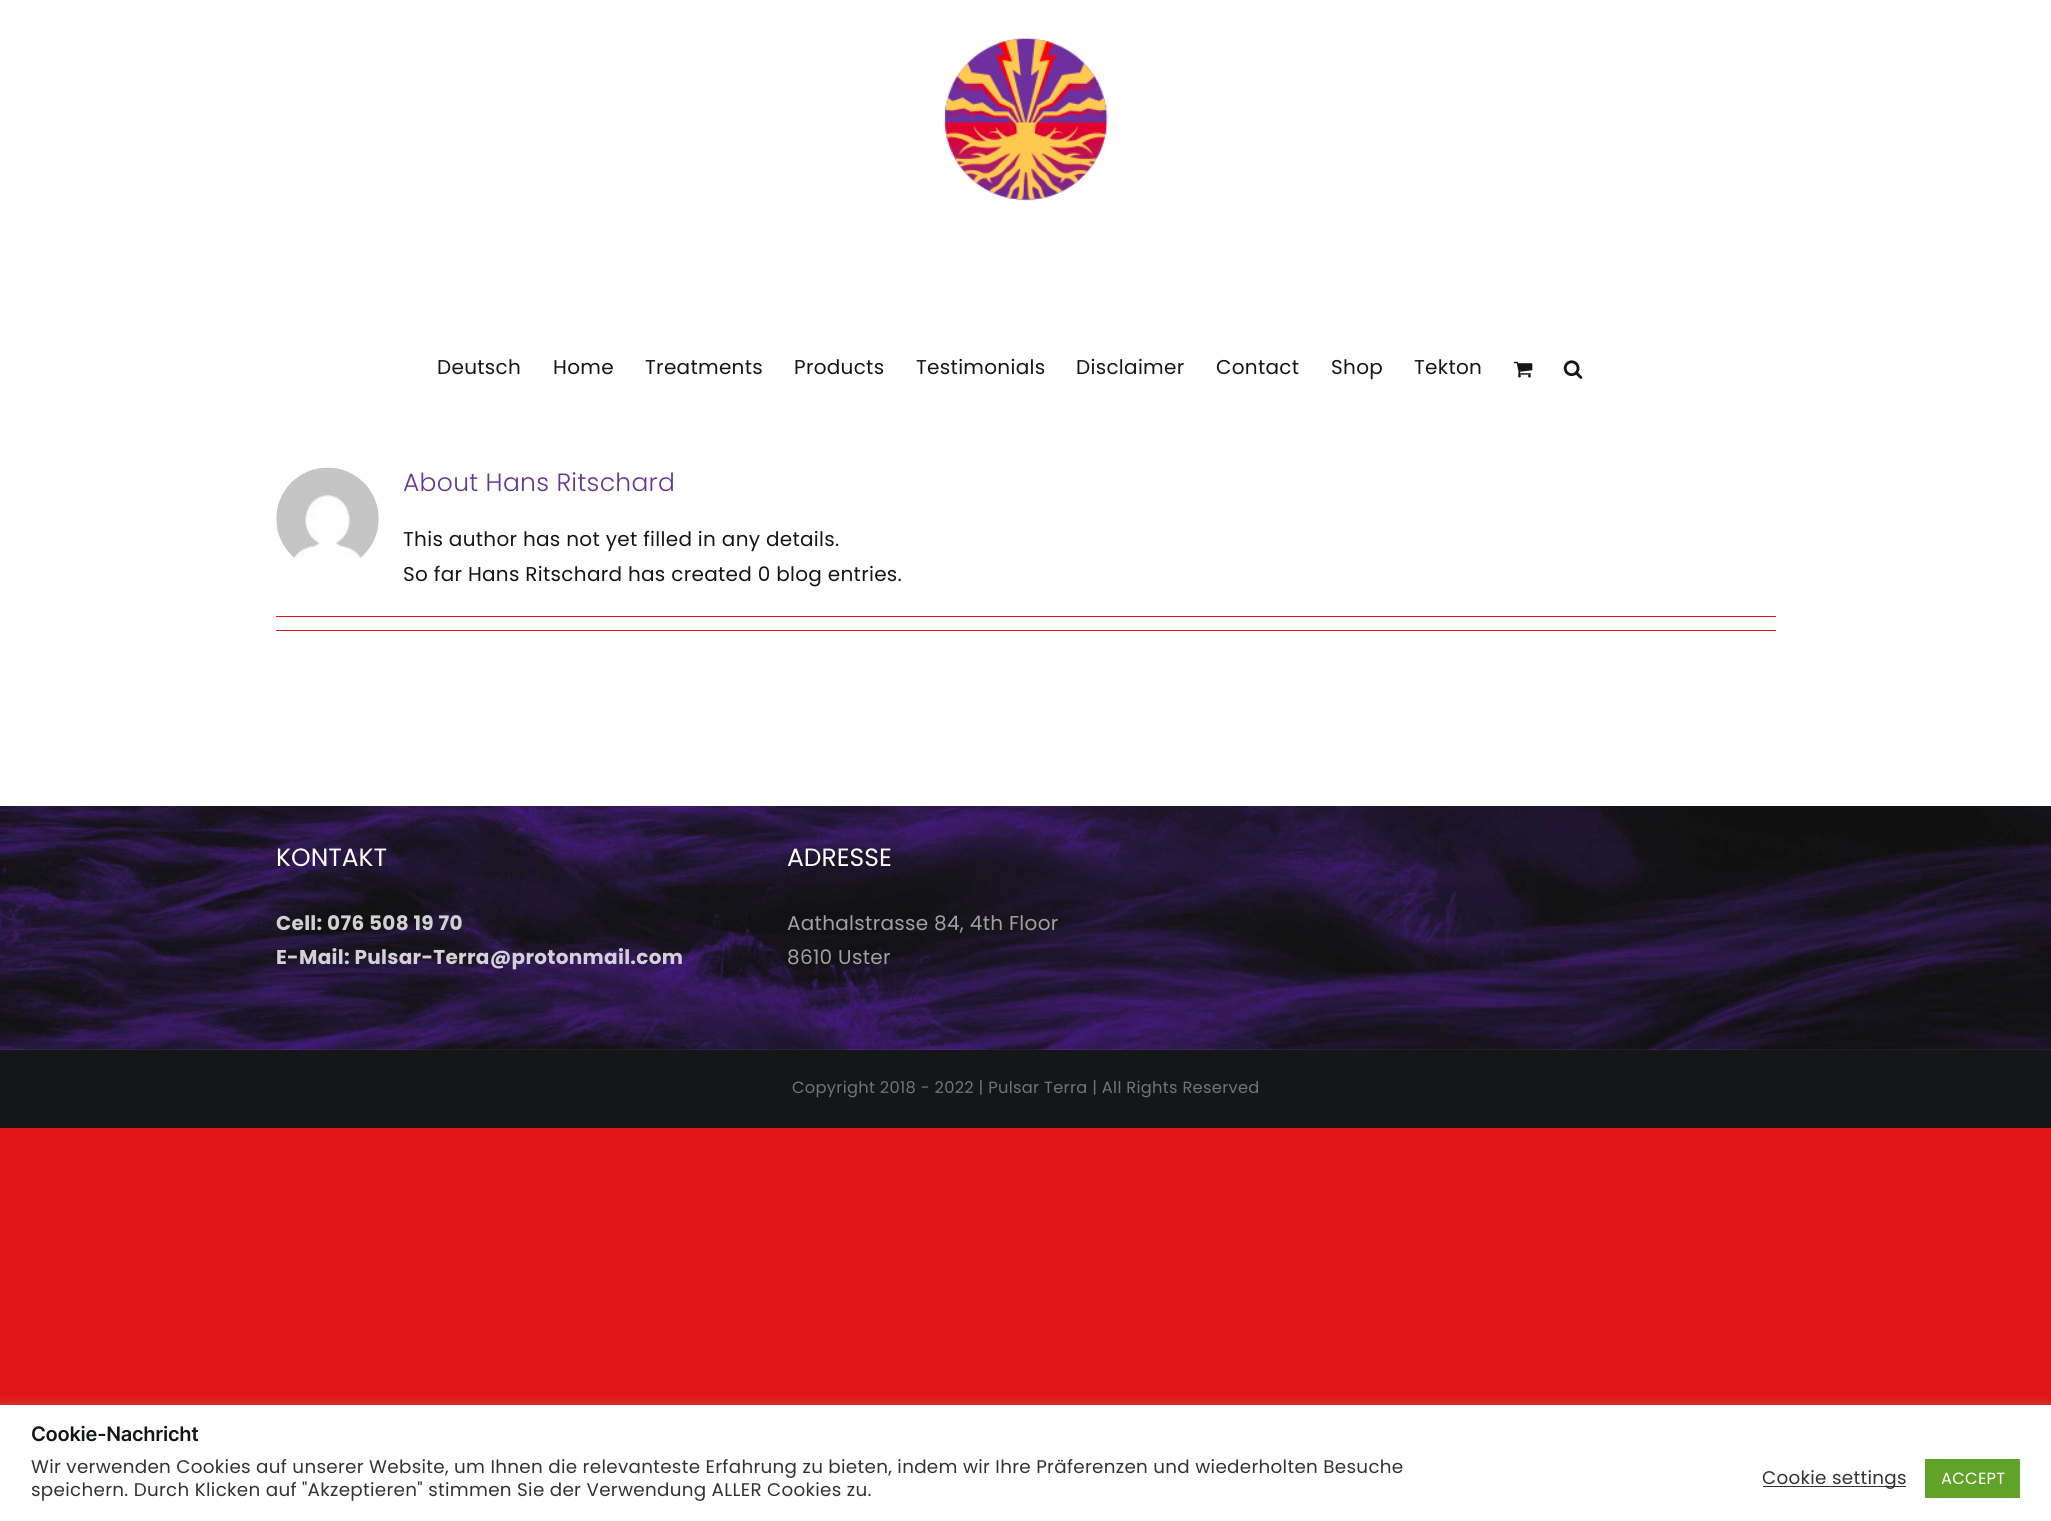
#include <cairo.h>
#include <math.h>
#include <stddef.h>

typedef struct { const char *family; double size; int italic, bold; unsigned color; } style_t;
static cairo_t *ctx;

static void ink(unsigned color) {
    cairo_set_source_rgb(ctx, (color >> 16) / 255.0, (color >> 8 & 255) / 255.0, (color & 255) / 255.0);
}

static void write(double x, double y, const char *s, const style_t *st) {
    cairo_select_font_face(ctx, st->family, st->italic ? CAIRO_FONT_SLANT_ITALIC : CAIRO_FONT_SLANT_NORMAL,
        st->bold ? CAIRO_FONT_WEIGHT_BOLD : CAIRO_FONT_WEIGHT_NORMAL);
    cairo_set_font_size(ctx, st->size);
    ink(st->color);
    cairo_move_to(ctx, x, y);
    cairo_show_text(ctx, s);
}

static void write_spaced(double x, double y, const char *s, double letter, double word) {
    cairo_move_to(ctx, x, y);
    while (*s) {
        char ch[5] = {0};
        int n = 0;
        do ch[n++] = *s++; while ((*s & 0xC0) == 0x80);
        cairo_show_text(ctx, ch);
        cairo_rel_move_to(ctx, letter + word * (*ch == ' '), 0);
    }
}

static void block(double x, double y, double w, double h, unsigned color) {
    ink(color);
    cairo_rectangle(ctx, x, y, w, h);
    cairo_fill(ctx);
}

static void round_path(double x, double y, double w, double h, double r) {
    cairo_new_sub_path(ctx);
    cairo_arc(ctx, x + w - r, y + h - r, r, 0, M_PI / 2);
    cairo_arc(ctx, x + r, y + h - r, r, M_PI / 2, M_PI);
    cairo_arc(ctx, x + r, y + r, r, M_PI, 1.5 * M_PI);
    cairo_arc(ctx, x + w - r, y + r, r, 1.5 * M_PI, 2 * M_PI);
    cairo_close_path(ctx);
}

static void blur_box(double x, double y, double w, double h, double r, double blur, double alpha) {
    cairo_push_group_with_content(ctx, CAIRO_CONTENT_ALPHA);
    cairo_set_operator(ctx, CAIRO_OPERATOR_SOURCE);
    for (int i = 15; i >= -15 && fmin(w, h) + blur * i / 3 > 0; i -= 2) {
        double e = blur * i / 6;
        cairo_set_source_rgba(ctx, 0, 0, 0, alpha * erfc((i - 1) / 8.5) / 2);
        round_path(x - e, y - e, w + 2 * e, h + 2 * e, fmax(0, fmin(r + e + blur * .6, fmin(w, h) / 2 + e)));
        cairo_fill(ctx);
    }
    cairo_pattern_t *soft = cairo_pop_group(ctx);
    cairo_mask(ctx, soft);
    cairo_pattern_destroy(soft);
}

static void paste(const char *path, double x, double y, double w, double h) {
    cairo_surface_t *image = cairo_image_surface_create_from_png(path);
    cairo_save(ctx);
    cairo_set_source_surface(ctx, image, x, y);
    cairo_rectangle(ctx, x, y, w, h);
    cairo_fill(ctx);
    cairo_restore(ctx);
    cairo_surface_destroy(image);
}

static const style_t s1 = {"Poppins", 25, 0, 0, 0xffffff};

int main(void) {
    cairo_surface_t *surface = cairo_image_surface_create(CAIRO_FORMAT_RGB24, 2051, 1521);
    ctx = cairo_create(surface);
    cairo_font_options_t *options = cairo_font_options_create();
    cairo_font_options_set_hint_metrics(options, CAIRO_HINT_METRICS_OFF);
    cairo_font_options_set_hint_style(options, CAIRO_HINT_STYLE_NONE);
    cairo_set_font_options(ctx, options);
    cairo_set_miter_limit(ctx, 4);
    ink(0xe01414);
    cairo_paint(ctx);
    block(0, 0, 2051, 1050, 0xffffff);
    paste("pic1.png", 944, 38, 164, 163);
    cairo_select_font_face(ctx, "Poppins", CAIRO_FONT_SLANT_NORMAL, CAIRO_FONT_WEIGHT_NORMAL);
    cairo_set_font_size(ctx, 20);
    ink(0x141617);
    write_spaced(437, 374, "Deutsch", 0.3, 0);
    write_spaced(553, 374, "Home", 0.3, 0);
    write_spaced(645, 374, "Treatments", 0.3, 0);
    write_spaced(794, 374, "Products", 0.3, 0);
    write_spaced(916, 374, "Testimonials", 0.3, 0);
    write_spaced(1076, 374, "Disclaimer", 0.3, 0);
    write_spaced(1216, 374, "Contact", 0.3, 0);
    write_spaced(1331, 374, "Shop", 0.3, 0);
    write_spaced(1414, 374, "Tekton", 0.3, 0);
    paste("pic2.png", 1513, 361, 20, 17);
    paste("pic3.png", 1563, 360, 20, 19);
    paste("pic4.png", 276, 467, 103, 91);
    cairo_select_font_face(ctx, "Poppins Light", CAIRO_FONT_SLANT_NORMAL, CAIRO_FONT_WEIGHT_NORMAL);
    cairo_set_font_size(ctx, 25);
    ink(0x663399);
    write_spaced(403, 491, "About Hans Ritschard", 0.3, 0);
    cairo_select_font_face(ctx, "Poppins", CAIRO_FONT_SLANT_NORMAL, CAIRO_FONT_WEIGHT_NORMAL);
    cairo_set_font_size(ctx, 20);
    ink(0x141617);
    write_spaced(403, 546, "This author has not yet filled in any details.", 0.3, 0);
    write_spaced(403, 581, "So far Hans Ritschard has created 0 blog entries.", 0.3, 0);
    block(276, 616, 1500, 1, 0xe01414);
    block(276, 630, 1500, 1, 0xe01414);
    paste("pic5.png", 0, 806, 2051, 244);
    write(276, 866, "KONTAKT", &s1);
    cairo_select_font_face(ctx, "Poppins", CAIRO_FONT_SLANT_NORMAL, CAIRO_FONT_WEIGHT_BOLD);
    cairo_set_font_size(ctx, 20);
    ink(0xd1d0d2);
    write_spaced(276, 930, "Cell: 076 508 19 70", 0.3, 0);
    ink(0xd3d0d8);
    write_spaced(276, 964, "E-Mail: Pulsar-Terra@protonmail.com", 0.3, 0);
    write(787, 866, "ADRESSE", &s1);
    cairo_set_font_size(ctx, 20);
    ink(0xa1a0a3);
    write_spaced(787, 930, "Aathalstrasse 84, 4th Floor", 0.3, 0);
    write_spaced(787, 964, "8610 Uster", 0.3, 0);
    block(0, 1050, 2051, 78, 0x141617);
    cairo_set_font_size(ctx, 16.25);
    ink(0x727374);
    write_spaced(792, 1093, "Copyright 2018 - 2022 | Pulsar Terra | All Rights Reserved", 0.3, 0);
    ink(0xacabab);
    blur_box(0, 1404, 2051, 116, 0, 6, 0.3);
    block(0, 1405, 2051, 116, 0xffffff);
    cairo_select_font_face(ctx, "Inter SemiBold", CAIRO_FONT_SLANT_NORMAL, CAIRO_FONT_WEIGHT_NORMAL);
    cairo_set_font_size(ctx, 20);
    ink(0x141617);
    write_spaced(31, 1441, "Cookie-Nachricht", -0.25, 0);
    cairo_select_font_face(ctx, "Poppins", CAIRO_FONT_SLANT_NORMAL, CAIRO_FONT_WEIGHT_NORMAL);
    cairo_set_font_size(ctx, 18.33);
    ink(0x333333);
    write_spaced(31, 1473, "Wir verwenden Cookies auf unserer Website, um Ihnen die relevanteste Erfahrung zu bieten, indem wir Ihre Präferenzen und wiederholten Besuche", 0.3, 0);
    write_spaced(31, 1496, "speichern. Durch Klicken auf \"Akzeptieren\" stimmen Sie der Verwendung ALLER Cookies zu.", 0.3, 0);
    block(1763, 1486, 143, 1, 0x333333);
    write_spaced(1762, 1484, "Cookie settings", 0.3, 0);
    block(1925, 1459, 95, 39, 0x61a229);
    cairo_set_font_size(ctx, 16.25);
    ink(0xffffff);
    write_spaced(1941, 1484, "ACCEPT", 0.3, 0);
    cairo_surface_write_to_png(surface, "screenshot.png");
    cairo_font_options_destroy(options);
    cairo_destroy(ctx);
    cairo_surface_destroy(surface);
    return 0;
}
